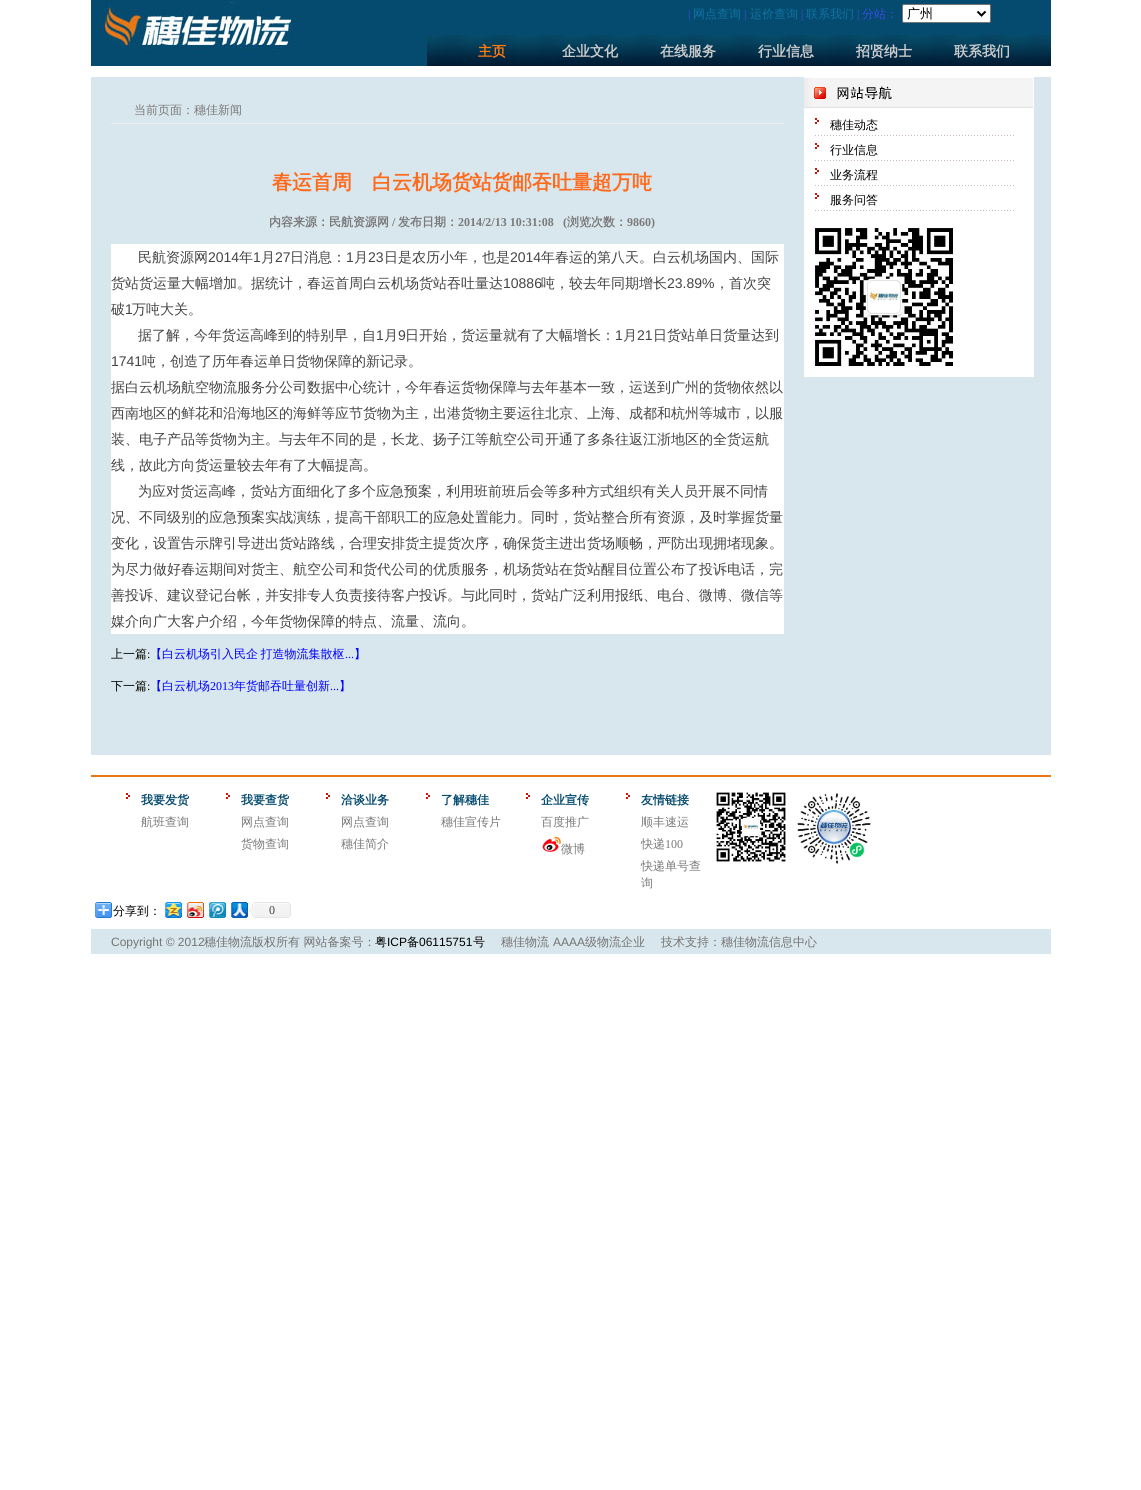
#include <cairo.h>
#include <math.h>
#include <stddef.h>

typedef struct { const char *family; double size; int italic, bold; unsigned color; } style_t;
static cairo_t *ctx;

static void ink(unsigned color) {
    cairo_set_source_rgb(ctx, (color >> 16) / 255.0, (color >> 8 & 255) / 255.0, (color & 255) / 255.0);
}

static void write(double x, double y, const char *s, const style_t *st) {
    cairo_select_font_face(ctx, st->family, st->italic ? CAIRO_FONT_SLANT_ITALIC : CAIRO_FONT_SLANT_NORMAL,
        st->bold ? CAIRO_FONT_WEIGHT_BOLD : CAIRO_FONT_WEIGHT_NORMAL);
    cairo_set_font_size(ctx, st->size);
    ink(st->color);
    cairo_move_to(ctx, x, y);
    cairo_show_text(ctx, s);
}

static void write_spaced(double x, double y, const char *s, double letter, double word) {
    cairo_move_to(ctx, x, y);
    while (*s) {
        char ch[5] = {0};
        int n = 0;
        do ch[n++] = *s++; while ((*s & 0xC0) == 0x80);
        cairo_show_text(ctx, ch);
        cairo_rel_move_to(ctx, letter + word * (*ch == ' '), 0);
    }
}

static void block(double x, double y, double w, double h, unsigned color) {
    ink(color);
    cairo_rectangle(ctx, x, y, w, h);
    cairo_fill(ctx);
}

static void round_path(double x, double y, double w, double h, double r) {
    cairo_new_sub_path(ctx);
    cairo_arc(ctx, x + w - r, y + h - r, r, 0, M_PI / 2);
    cairo_arc(ctx, x + r, y + h - r, r, M_PI / 2, M_PI);
    cairo_arc(ctx, x + r, y + r, r, M_PI, 1.5 * M_PI);
    cairo_arc(ctx, x + w - r, y + r, r, 1.5 * M_PI, 2 * M_PI);
    cairo_close_path(ctx);
}

static void paste(const char *path, double x, double y, double w, double h) {
    cairo_surface_t *image = cairo_image_surface_create_from_png(path);
    cairo_save(ctx);
    cairo_set_source_surface(ctx, image, x, y);
    cairo_rectangle(ctx, x, y, w, h);
    cairo_fill(ctx);
    cairo_restore(ctx);
    cairo_surface_destroy(image);
}

static const style_t s1 = {"Liberation Serif", 12, 0, 0, 0x394be4};
static const style_t s2 = {"WenQuanYi Zen Hei Medium", 12, 0, 0, 0x1172a4};
static const style_t s3 = {"WenQuanYi Zen Hei Medium", 12, 0, 0, 0x394be4};
static const style_t s4 = {"WenQuanYi Zen Hei Medium", 13, 0, 0, 0x000000};
static const style_t s5 = {"WenQuanYi Zen Hei", 14, 0, 1, 0xff7b0e};
static const style_t s6 = {"WenQuanYi Zen Hei", 14, 0, 1, 0xcccccc};
static const style_t s7 = {"WenQuanYi Zen Hei Medium", 12, 0, 0, 0x7a7a7a};
static const style_t s8 = {"WenQuanYi Zen Hei", 20, 0, 1, 0xff6b1d};
static const style_t s9 = {"WenQuanYi Zen Hei", 12, 0, 1, 0x7a7a7a};
static const style_t s10 = {"Liberation Serif", 12, 0, 1, 0x7a7a7a};
static const style_t s11 = {"WenQuanYi Zen Hei Medium", 14, 0, 0, 0x444444};
static const style_t s12 = {"Liberation Sans", 14, 0, 0, 0x444444};
static const style_t s13 = {"WenQuanYi Zen Hei Medium", 12, 0, 0, 0x000000};
static const style_t s14 = {"Liberation Serif", 12, 0, 0, 0x000000};
static const style_t s15 = {"Liberation Serif", 12, 0, 0, 0x0000ff};
static const style_t s16 = {"WenQuanYi Zen Hei Medium", 12, 0, 0, 0x0000ff};
static const style_t s17 = {"WenQuanYi Zen Hei", 12, 0, 1, 0x054b6f};
static const style_t s18 = {"Liberation Serif", 12, 0, 0, 0x7a7a7a};
static const style_t s19 = {"Liberation Serif", 12, 0, 0, 0x444444};
static const style_t s20 = {"Liberation Sans", 12, 0, 0, 0x747474};
static const style_t s21 = {"WenQuanYi Zen Hei Medium", 12, 0, 0, 0x747474};
static const style_t s22 = {"Liberation Sans", 12, 0, 0, 0x000000};

int main(void) {
    cairo_surface_t *surface = cairo_image_surface_create(CAIRO_FORMAT_RGB24, 1141, 1490);
    ctx = cairo_create(surface);
    cairo_font_options_t *options = cairo_font_options_create();
    cairo_font_options_set_hint_metrics(options, CAIRO_HINT_METRICS_OFF);
    cairo_font_options_set_hint_style(options, CAIRO_HINT_STYLE_NONE);
    cairo_set_font_options(ctx, options);
    cairo_set_miter_limit(ctx, 4);
    ink(0xffffff);
    cairo_paint(ctx);
    block(91, 0, 960, 66, 0x054b6f);
    paste("pic1.png", 99, 2, 192, 48);
    write(688, 18, "|", &s1);
    write(693, 18, "网点查询", &s2);
    write(744, 18, "|", &s1);
    write(750, 18, "运价查询", &s2);
    write(801, 18, "|", &s1);
    write(806, 18, "联系我们", &s2);
    write(857, 18, "|", &s1);
    write(862, 18, "分站：", &s3);
    ink(0xffffff);
    round_path(902.5, 4.5, 88, 18, 1.5);
    cairo_fill_preserve(ctx);
    ink(0x767676);
    cairo_set_line_width(ctx, 1);
    cairo_stroke(ctx);
    cairo_new_path(ctx);
    cairo_move_to(ctx, 977.5, 11.5);
    cairo_line_to(ctx, 981.5, 15.5);
    cairo_line_to(ctx, 985.5, 11.5);
    ink(0x000000);
    cairo_set_line_width(ctx, 2);
    cairo_stroke(ctx);
    write(907, 18, "广州", &s4);
    paste("pic2.png", 427, 35, 624, 31);
    write(478, 56, "主页", &s5);
    write(562, 56, "企业文化", &s6);
    write(660, 56, "在线服务", &s6);
    write(758, 56, "行业信息", &s6);
    write(856, 56, "招贤纳士", &s6);
    write(954, 56, "联系我们", &s6);
    block(91, 77, 960, 678, 0xd8e6ed);
    block(111, 123, 673, 1, 0xeeeeee);
    write(134, 114, "当前页面：穗佳新闻", &s7);
    write(272, 189, "春运首周　白云机场货站货邮吞吐量超万吨", &s8);
    write(269, 226, "内容来源：民航资源网", &s9);
    write(392, 226, "/", &s10);
    write(398, 226, "发布日期：", &s9);
    write(458, 226, "2014/2/13 10:31:08", &s10);
    write(563, 226, "(", &s10);
    write(567, 226, "浏览次数：", &s9);
    write(627, 226, "9860)", &s10);
    block(111, 244, 673, 390, 0xffffff);
    write(138, 262, "民航资源网", &s11);
    write(208, 262, "2014", &s12);
    write(239, 262, "年", &s11);
    write(253, 262, "1", &s12);
    write(261, 262, "月", &s11);
    write(275, 262, "27", &s12);
    write(290, 262, "日消息：", &s11);
    write(346, 262, "1", &s12);
    write(354, 262, "月", &s11);
    write(368, 262, "23", &s12);
    write(384, 262, "日是农历小年，也是", &s11);
    write(510, 262, "2014", &s12);
    write(541, 262, "年春运的第八天。白云机场国内、国际", &s11);
    write(111, 288, "货站货运量大幅增加。据统计，春运首周白云机场货站吞吐量达", &s11);
    write(503, 288, "10886", &s12);
    write(541, 288, "吨，较去年同期增长", &s11);
    write(667, 288, "23.89%", &s12);
    write(715, 288, "，首次突", &s11);
    write(111, 314, "破", &s11);
    write(125, 314, "1", &s12);
    write(132, 314, "万吨大关。", &s11);
    write(138, 340, "据了解，今年货运高峰到的特别早，自", &s11);
    write(376, 340, "1", &s12);
    write(384, 340, "月", &s11);
    write(398, 340, "9", &s12);
    write(405, 340, "日开始，货运量就有了大幅增长：", &s11);
    write(615, 340, "1", &s12);
    write(623, 340, "月", &s11);
    write(637, 340, "21", &s12);
    write(653, 340, "日货站单日货量达到", &s11);
    write(111, 366, "1741", &s12);
    write(142, 366, "吨，创造了历年春运单日货物保障的新记录。", &s11);
    write(111, 392, "据白云机场航空物流服务分公司数据中心统计，今年春运货物保障与去年基本一致，运送到广州的货物依然以", &s11);
    write(111, 418, "西南地区的鲜花和沿海地区的海鲜等应节货物为主，出港货物主要运往北京、上海、成都和杭州等城市，以服", &s11);
    write(111, 444, "装、电子产品等货物为主。与去年不同的是，长龙、扬子江等航空公司开通了多条往返江浙地区的全货运航", &s11);
    write(111, 470, "线，故此方向货运量较去年有了大幅提高。", &s11);
    write(138, 496, "为应对货运高峰，货站方面细化了多个应急预案，利用班前班后会等多种方式组织有关人员开展不同情", &s11);
    write(111, 522, "况、不同级别的应急预案实战演练，提高干部职工的应急处置能力。同时，货站整合所有资源，及时掌握货量", &s11);
    write(111, 548, "变化，设置告示牌引导进出货站路线，合理安排货主提货次序，确保货主进出货场顺畅，严防出现拥堵现象。", &s11);
    write(111, 574, "为尽力做好春运期间对货主、航空公司和货代公司的优质服务，机场货站在货站醒目位置公布了投诉电话，完", &s11);
    write(111, 600, "善投诉、建议登记台帐，并安排专人负责接待客户投诉。与此同时，货站广泛利用报纸、电台、微博、微信等", &s11);
    write(111, 626, "媒介向广大客户介绍，今年货物保障的特点、流量、流向。", &s11);
    write(111, 658, "上一篇", &s13);
    write(147, 658, ":", &s14);
    cairo_select_font_face(ctx, "WenQuanYi Zen Hei Medium", CAIRO_FONT_SLANT_NORMAL, CAIRO_FONT_WEIGHT_NORMAL);
    ink(0x0000ff);
    write_spaced(150, 658, "【白云机场引入民企 打造物流集散枢", 0, -1);
    write(345, 658, "...", &s15);
    write(354, 658, "】", &s16);
    write(111, 690, "下一篇", &s13);
    write(147, 690, ":", &s14);
    write(150, 690, "【白云机场", &s16);
    write(210, 690, "2013", &s15);
    write(234, 690, "年货邮吞吐量创新", &s16);
    write(330, 690, "...", &s15);
    write(339, 690, "】", &s16);
    block(804, 77, 230, 300, 0xffffff);
    paste("pic3.png", 804, 78, 229, 30);
    paste("pic4.png", 815, 118, 199, 18);
    write(830, 129, "穗佳动态", &s13);
    paste("pic4.png", 815, 143, 199, 18);
    write(830, 154, "行业信息", &s13);
    paste("pic4.png", 815, 168, 199, 18);
    write(830, 179, "业务流程", &s13);
    paste("pic4.png", 815, 193, 199, 18);
    write(830, 204, "服务问答", &s13);
    paste("pic5.png", 815, 228, 138, 138);
    block(91, 775, 960, 2, 0xe67817);
    paste("pic6.png", 126, 793, 4, 6);
    write(141, 804, "我要发货", &s17);
    write(141, 826, "航班查询", &s7);
    paste("pic6.png", 226, 793, 4, 6);
    write(241, 804, "我要查货", &s17);
    write(241, 826, "网点查询", &s7);
    write(241, 848, "货物查询", &s7);
    paste("pic6.png", 326, 793, 4, 6);
    write(341, 804, "洽谈业务", &s17);
    write(341, 826, "网点查询", &s7);
    write(341, 848, "穗佳简介", &s7);
    paste("pic6.png", 426, 793, 4, 6);
    write(441, 804, "了解穗佳", &s17);
    write(441, 826, "穗佳宣传片", &s7);
    paste("pic6.png", 526, 793, 4, 6);
    write(541, 804, "企业宣传", &s17);
    write(541, 826, "百度推广", &s7);
    paste("pic7.png", 542, 836, 19, 16);
    write(561, 853, "微博", &s7);
    paste("pic6.png", 626, 793, 4, 6);
    write(641, 804, "友情链接", &s17);
    write(641, 826, "顺丰速运", &s7);
    write(641, 848, "快递", &s7);
    write(665, 848, "100", &s18);
    write(641, 870, "快递单号查", &s7);
    write(641, 887, "询", &s7);
    paste("pic8.png", 716, 792, 70, 70);
    paste("pic9.png", 797, 793, 74, 71);
    paste("pic10.png", 95, 902, 17, 16);
    write(113, 915, "分享到：", &s13);
    paste("pic11.png", 165, 902, 17, 16);
    paste("pic12.png", 187, 902, 17, 16);
    paste("pic13.png", 209, 902, 17, 16);
    paste("pic14.png", 231, 902, 17, 16);
    paste("pic15.png", 249, 902, 42, 16);
    write(269, 914, "0", &s19);
    block(91, 929, 960, 25, 0xd8e6ed);
    write(111, 946, "Copyright © 2012", &s20);
    write(204, 946, "穗佳物流版权所有 网站备案号：", &s21);
    write(375, 946, "粤", &s13);
    write(387, 946, "ICP", &s22);
    write(407, 946, "备", &s13);
    write(419, 946, "06115751", &s22);
    write(473, 946, "号", &s13);
    write(501, 946, "穗佳物流", &s21);
    write(553, 946, "AAAA", &s20);
    write(585, 946, "级物流企业", &s21);
    write(661, 946, "技术支持：穗佳物流信息中心", &s21);
    cairo_surface_write_to_png(surface, "screenshot.png");
    cairo_font_options_destroy(options);
    cairo_destroy(ctx);
    cairo_surface_destroy(surface);
    return 0;
}
